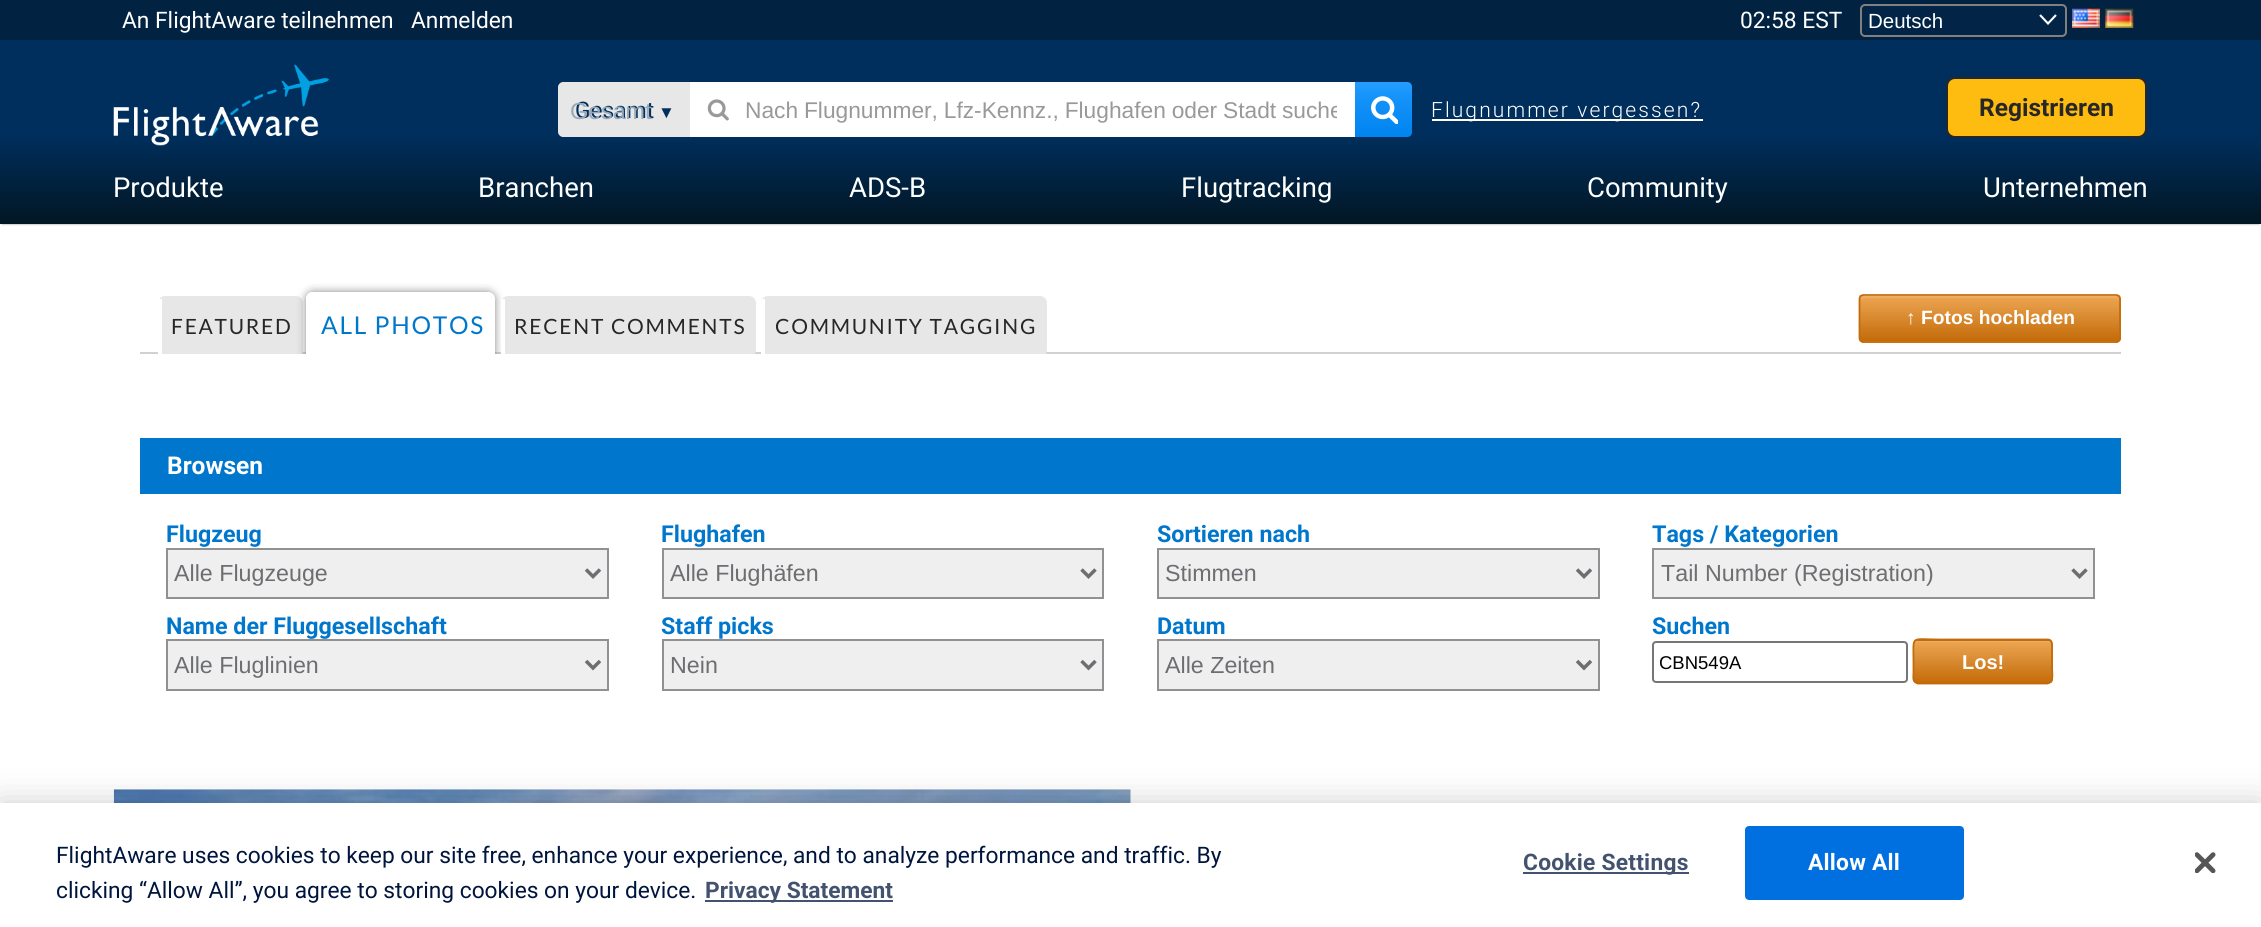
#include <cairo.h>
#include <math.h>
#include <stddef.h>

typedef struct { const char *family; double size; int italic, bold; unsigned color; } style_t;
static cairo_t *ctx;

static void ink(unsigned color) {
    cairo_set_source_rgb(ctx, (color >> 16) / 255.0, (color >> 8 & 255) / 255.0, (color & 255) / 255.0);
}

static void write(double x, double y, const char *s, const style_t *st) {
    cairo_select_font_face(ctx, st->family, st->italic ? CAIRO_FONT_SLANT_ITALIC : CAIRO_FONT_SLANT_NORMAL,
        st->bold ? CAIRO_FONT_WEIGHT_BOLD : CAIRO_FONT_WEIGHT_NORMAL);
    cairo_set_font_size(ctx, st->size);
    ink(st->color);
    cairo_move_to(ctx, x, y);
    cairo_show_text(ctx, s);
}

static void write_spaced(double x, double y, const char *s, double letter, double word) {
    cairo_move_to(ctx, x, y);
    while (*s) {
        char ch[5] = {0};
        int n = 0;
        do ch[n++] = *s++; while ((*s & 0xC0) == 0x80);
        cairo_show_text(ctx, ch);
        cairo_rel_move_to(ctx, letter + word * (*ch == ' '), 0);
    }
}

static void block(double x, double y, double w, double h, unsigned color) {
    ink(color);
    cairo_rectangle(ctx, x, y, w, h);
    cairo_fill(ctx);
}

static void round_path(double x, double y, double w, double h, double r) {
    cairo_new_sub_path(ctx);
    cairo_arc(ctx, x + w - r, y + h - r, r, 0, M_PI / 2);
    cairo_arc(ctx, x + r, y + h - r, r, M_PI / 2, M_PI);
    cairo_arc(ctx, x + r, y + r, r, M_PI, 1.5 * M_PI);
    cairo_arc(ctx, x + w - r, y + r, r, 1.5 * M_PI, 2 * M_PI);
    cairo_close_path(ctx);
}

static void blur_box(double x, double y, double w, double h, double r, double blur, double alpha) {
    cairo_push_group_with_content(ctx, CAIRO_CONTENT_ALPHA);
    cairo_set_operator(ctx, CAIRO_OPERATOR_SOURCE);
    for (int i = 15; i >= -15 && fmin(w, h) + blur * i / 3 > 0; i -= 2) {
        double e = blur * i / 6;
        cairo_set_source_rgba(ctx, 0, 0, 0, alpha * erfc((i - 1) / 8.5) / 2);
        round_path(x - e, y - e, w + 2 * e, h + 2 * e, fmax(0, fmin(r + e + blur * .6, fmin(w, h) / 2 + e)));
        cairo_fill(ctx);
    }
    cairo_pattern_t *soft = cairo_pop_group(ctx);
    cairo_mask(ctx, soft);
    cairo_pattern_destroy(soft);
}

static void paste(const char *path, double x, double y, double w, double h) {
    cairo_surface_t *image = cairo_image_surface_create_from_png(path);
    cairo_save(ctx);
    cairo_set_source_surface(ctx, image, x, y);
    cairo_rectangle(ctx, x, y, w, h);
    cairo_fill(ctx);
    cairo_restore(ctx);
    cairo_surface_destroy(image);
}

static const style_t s1 = {"Roboto", 22.75, 0, 0, 0xffffff};
static const style_t s2 = {"Liberation Sans", 20.5, 0, 0, 0xffffff};
static const style_t s3 = {"Roboto", 22.75, 0, 0, 0x002f5d};
static const style_t s4 = {"Liberation Sans", 17, 0, 0, 0x002f5d};
static const style_t s5 = {"Liberation Sans", 23.25, 0, 0, 0x99a9b9};
static const style_t s6 = {"Roboto", 24.5, 0, 1, 0x272727};
static const style_t s7 = {"Roboto", 27.5, 0, 0, 0xffffff};
static const style_t s8 = {"Liberation Sans", 19.25, 0, 1, 0xffffff};
static const style_t s9 = {"Roboto", 24.5, 0, 1, 0xffffff};
static const style_t s10 = {"Roboto", 23.25, 0, 1, 0x0077cc};
static const style_t s11 = {"Liberation Sans", 23.25, 0, 0, 0x6d6e71};
static const style_t s12 = {"Liberation Sans", 18.5, 0, 0, 0x000000};
static const style_t s13 = {"Liberation Sans", 20, 0, 1, 0xffffff};
static const style_t s14 = {"Roboto", 22.75, 0, 0, 0x00153d};
static const style_t s15 = {"Roboto", 22.75, 0, 1, 0x42526f};

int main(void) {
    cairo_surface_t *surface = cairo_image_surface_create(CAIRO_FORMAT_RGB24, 2261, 927);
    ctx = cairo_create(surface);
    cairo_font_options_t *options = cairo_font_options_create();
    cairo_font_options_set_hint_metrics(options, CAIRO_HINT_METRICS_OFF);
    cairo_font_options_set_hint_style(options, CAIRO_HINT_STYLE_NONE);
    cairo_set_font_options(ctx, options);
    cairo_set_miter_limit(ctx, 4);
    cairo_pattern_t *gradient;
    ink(0xffffff);
    cairo_paint(ctx);
    ink(0x888888);
    blur_box(2, 4, 2257, 220, 0, 1, 1);
    gradient = cairo_pattern_create_linear(1131, 0, 1131, 224);
    cairo_pattern_add_color_stop_rgba(gradient, 0, 0, 0.184, 0.365, 1);
    cairo_pattern_add_color_stop_rgba(gradient, 0.6, 0, 0.184, 0.365, 1);
    cairo_pattern_add_color_stop_rgba(gradient, 1, 0.008, 0.086, 0.141, 1);
    cairo_set_source(ctx, gradient);
    cairo_pattern_destroy(gradient);
    cairo_rectangle(ctx, 0, 40, 2261, 184);
    cairo_fill(ctx);
    block(0, 0, 2261, 40, 0x022241);
    write(122, 28, "An FlightAware teilnehmen", &s1);
    write(411, 28, "Anmelden", &s1);
    write(1740, 28, "02:58 EST", &s1);
    ink(0x022547);
    round_path(1860, 4, 207, 33, 5);
    cairo_fill(ctx);
    cairo_new_path(ctx);
    cairo_move_to(ctx, 2040, 15);
    cairo_line_to(ctx, 2048, 23.5);
    cairo_line_to(ctx, 2056, 15);
    ink(0xffffff);
    cairo_set_line_width(ctx, 2.1);
    cairo_stroke(ctx);
    round_path(1861, 5, 205, 31, 4);
    ink(0x808080);
    cairo_set_line_width(ctx, 2);
    cairo_stroke(ctx);
    write(1868, 28, "Deutsch", &s2);
    paste("pic1.png", 2072, 8, 28, 20);
    paste("pic2.png", 2105, 8, 29, 20);
    paste("pic3.png", 113, 64, 216, 82);
    ink(0xe7e7e7);
    cairo_new_path(ctx);
    cairo_move_to(ctx, 563, 83);
    cairo_line_to(ctx, 689, 83);
    cairo_line_to(ctx, 689, 136);
    cairo_line_to(ctx, 563, 136);
    cairo_curve_to(ctx, 561, 136, 559, 134, 559, 132);
    cairo_line_to(ctx, 559, 87);
    cairo_curve_to(ctx, 559, 85, 561, 83, 563, 83);
    cairo_close_path(ctx);
    cairo_fill_preserve(ctx);
    cairo_stroke(ctx);
    write(575, 118, "Gesamt", &s3);
    write(658, 118, "▼", &s4);
    write(570, 119, "Gesamt", &s5);
    block(690, 82, 665, 55, 0xffffff);
    paste("pic4.png", 707, 99, 22, 22);
    cairo_save(ctx);
    cairo_rectangle(ctx, 707, 96, 630, 27);
    cairo_clip(ctx);
    cairo_set_font_size(ctx, 22.75);
    ink(0x999999);
    write_spaced(745, 118, "Nach Flugnummer, Lfz-Kennz., Flughafen oder Stadt suche", 0, -0.5);
    cairo_restore(ctx);
    gradient = cairo_pattern_create_linear(1384, 137, 1384, 82);
    cairo_pattern_add_color_stop_rgba(gradient, 0, 0, 0.518, 0.941, 1);
    cairo_pattern_add_color_stop_rgba(gradient, 0.66, 0.071, 0.569, 0.973, 1);
    cairo_pattern_add_color_stop_rgba(gradient, 1, 0.141, 0.616, 1, 1);
    cairo_set_source(ctx, gradient);
    cairo_pattern_destroy(gradient);
    cairo_new_path(ctx);
    cairo_move_to(ctx, 1355, 82);
    cairo_line_to(ctx, 1407, 82);
    cairo_curve_to(ctx, 1410, 82, 1412, 84, 1412, 87);
    cairo_line_to(ctx, 1412, 132);
    cairo_curve_to(ctx, 1412, 135, 1410, 137, 1407, 137);
    cairo_line_to(ctx, 1355, 137);
    cairo_close_path(ctx);
    cairo_fill(ctx);
    paste("pic5.png", 1371, 96, 27, 28);
    block(1432, 119, 271, 2, 0xffffff);
    cairo_select_font_face(ctx, "Roboto Light", CAIRO_FONT_SLANT_NORMAL, CAIRO_FONT_WEIGHT_NORMAL);
    cairo_set_font_size(ctx, 21);
    write_spaced(1431, 117, "Flugnummer vergessen?", 2.1, 0);
    ink(0xfebc11);
    round_path(1947, 78, 199, 59, 8);
    cairo_fill_preserve(ctx);
    ink(0x272727);
    cairo_stroke(ctx);
    write(1979, 116, "Registrieren", &s6);
    write(113, 197, "Produkte", &s7);
    write(478, 197, "Branchen", &s7);
    write(849, 197, "ADS-B", &s7);
    write(1181, 197, "Flugtracking", &s7);
    write(1587, 197, "Community", &s7);
    write(1983, 197, "Unternehmen", &s7);
    block(140, 352, 1981, 2, 0xd1d1d1);
    cairo_save(ctx);
    cairo_rectangle(ctx, 140, 266, 1981, 88);
    cairo_clip(ctx);
    ink(0xe7e7e7);
    round_path(158, 296, 145, 61, 7);
    cairo_fill(ctx);
    cairo_restore(ctx);
    cairo_select_font_face(ctx, "Lato", CAIRO_FONT_SLANT_NORMAL, CAIRO_FONT_WEIGHT_NORMAL);
    cairo_set_font_size(ctx, 21);
    ink(0x272727);
    write_spaced(171, 334, "FEATURED", 1.75, 0);
    block(158, 299, 4, 55, 0xffffff);
    cairo_save(ctx);
    cairo_rectangle(ctx, 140, 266, 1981, 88);
    cairo_clip(ctx);
    ink(0x888888);
    blur_box(306, 292, 189, 69, 7, 4.5, 1);
    cairo_restore(ctx);
    cairo_new_path(ctx);
    cairo_move_to(ctx, 313, 292);
    cairo_line_to(ctx, 488, 292);
    cairo_curve_to(ctx, 492, 292, 495, 295, 495, 299);
    cairo_line_to(ctx, 495, 354);
    cairo_line_to(ctx, 306, 354);
    cairo_line_to(ctx, 306, 299);
    cairo_curve_to(ctx, 306, 295, 309, 292, 313, 292);
    cairo_close_path(ctx);
    cairo_fill(ctx);
    cairo_set_font_size(ctx, 24.5);
    ink(0x0077cc);
    write_spaced(321, 334, "ALL PHOTOS", 1.75, 0);
    cairo_save(ctx);
    cairo_rectangle(ctx, 140, 266, 1981, 88);
    cairo_clip(ctx);
    ink(0xffffff);
    cairo_set_fill_rule(ctx, CAIRO_FILL_RULE_EVEN_ODD);
    cairo_new_path(ctx);
    cairo_move_to(ctx, 313, 292);
    cairo_line_to(ctx, 488, 292);
    cairo_curve_to(ctx, 492, 292, 495, 295, 495, 299);
    cairo_line_to(ctx, 495, 354);
    cairo_curve_to(ctx, 495, 357, 492, 360, 488, 360);
    cairo_line_to(ctx, 313, 360);
    cairo_curve_to(ctx, 309, 360, 306, 357, 306, 354);
    cairo_line_to(ctx, 306, 299);
    cairo_curve_to(ctx, 306, 295, 309, 292, 313, 292);
    cairo_close_path(ctx);
    cairo_move_to(ctx, 313, 292);
    cairo_line_to(ctx, 488, 292);
    cairo_curve_to(ctx, 492, 292, 495, 295, 495, 299);
    cairo_line_to(ctx, 495, 354);
    cairo_curve_to(ctx, 495, 355, 492, 357, 488, 357);
    cairo_line_to(ctx, 313, 357);
    cairo_curve_to(ctx, 311, 357, 310, 355, 310, 354);
    cairo_line_to(ctx, 310, 299);
    cairo_curve_to(ctx, 310, 295, 311, 292, 313, 292);
    cairo_close_path(ctx);
    cairo_fill(ctx);
    ink(0xe7e7e7);
    round_path(501, 296, 255, 61, 7);
    cairo_fill(ctx);
    cairo_restore(ctx);
    cairo_set_font_size(ctx, 21);
    ink(0x272727);
    write_spaced(514, 334, "RECENT COMMENTS", 1.75, 0);
    block(501, 299, 4, 55, 0xffffff);
    cairo_save(ctx);
    cairo_rectangle(ctx, 140, 266, 1981, 88);
    cairo_clip(ctx);
    ink(0xe7e7e7);
    round_path(761, 296, 286, 61, 7);
    cairo_fill(ctx);
    cairo_restore(ctx);
    ink(0x272727);
    write_spaced(775, 334, "COMMUNITY TAGGING", 1.75, 0);
    block(761, 299, 4, 55, 0xffffff);
    cairo_save(ctx);
    round_path(1859, 294, 262, 49, 5);
    cairo_clip(ctx);
    gradient = cairo_pattern_create_linear(1860, 296, 1860, 341);
    cairo_pattern_add_color_stop_rgba(gradient, 0, 0.929, 0.651, 0.325, 1);
    cairo_pattern_add_color_stop_rgba(gradient, 1, 0.765, 0.42, 0.035, 1);
    cairo_set_source(ctx, gradient);
    cairo_pattern_destroy(gradient);
    cairo_rectangle(ctx, 1859, 296, 262, 45);
    cairo_fill(ctx);
    gradient = cairo_pattern_create_linear(1860, 341, 1860, 387);
    cairo_pattern_add_color_stop_rgba(gradient, 0, 0.929, 0.651, 0.325, 1);
    cairo_pattern_add_color_stop_rgba(gradient, 1, 0.765, 0.42, 0.035, 1);
    cairo_set_source(ctx, gradient);
    cairo_pattern_destroy(gradient);
    cairo_rectangle(ctx, 1859, 341, 262, 2);
    cairo_fill(ctx);
    cairo_restore(ctx);
    ink(0xedae63);
    cairo_new_path(ctx);
    cairo_move_to(ctx, 1864, 298);
    cairo_line_to(ctx, 2117, 298);
    cairo_line_to(ctx, 2119, 299);
    cairo_line_to(ctx, 2119, 301);
    cairo_line_to(ctx, 2119, 300);
    cairo_curve_to(ctx, 2119, 298, 2117, 296, 2115, 296);
    cairo_line_to(ctx, 1864, 296);
    cairo_curve_to(ctx, 1862, 296, 1860, 298, 1860, 300);
    cairo_line_to(ctx, 1860, 301);
    cairo_curve_to(ctx, 1860, 299, 1862, 298, 1864, 298);
    cairo_close_path(ctx);
    cairo_fill(ctx);
    cairo_new_path(ctx);
    cairo_move_to(ctx, 2119, 341);
    cairo_curve_to(ctx, 2118, 341.5, 2117, 342, 2116, 342);
    cairo_line_to(ctx, 1864, 342);
    cairo_curve_to(ctx, 1862.5, 342, 1861.5, 341.5, 1860.5, 341);
    ink(0xc26905);
    cairo_set_line_width(ctx, 1.8);
    cairo_stroke(ctx);
    cairo_new_path(ctx);
    cairo_move_to(ctx, 1860.5, 341);
    cairo_curve_to(ctx, 1860, 340, 1859.5, 339, 1859.5, 338);
    cairo_line_to(ctx, 1859.5, 299);
    cairo_curve_to(ctx, 1859.5, 298, 1860, 297, 1860.5, 296);
    cairo_curve_to(ctx, 1861.5, 295.5, 1862.5, 295, 1864, 295);
    cairo_line_to(ctx, 2116, 295);
    cairo_curve_to(ctx, 2117, 295, 2118, 295.5, 2119, 296);
    cairo_curve_to(ctx, 2119.5, 297, 2120, 298, 2120, 299);
    cairo_line_to(ctx, 2120, 338);
    cairo_curve_to(ctx, 2120, 339, 2119.5, 340, 2119, 341);
    ink(0xc36b09);
    cairo_stroke(ctx);
    write(1906, 324, "↑ Fotos hochladen", &s8);
    block(140, 438, 1981, 56, 0x0077cc);
    write(167, 474, "Browsen", &s9);
    write(166, 542, "Flugzeug", &s10);
    ink(0xefefef);
    cairo_rectangle(ctx, 167, 549, 441, 49);
    cairo_fill_preserve(ctx);
    ink(0x919194);
    cairo_set_line_width(ctx, 2);
    cairo_stroke(ctx);
    cairo_new_path(ctx);
    cairo_move_to(ctx, 586, 569.5);
    cairo_line_to(ctx, 593, 576.5);
    cairo_line_to(ctx, 600, 569.5);
    ink(0x6d6e71);
    cairo_set_line_width(ctx, 3.5);
    cairo_stroke(ctx);
    write(174, 581, "Alle Flugzeuge", &s11);
    write(661, 542, "Flughafen", &s10);
    ink(0xefefef);
    cairo_rectangle(ctx, 663, 549, 440, 49);
    cairo_fill_preserve(ctx);
    ink(0x919194);
    cairo_set_line_width(ctx, 2);
    cairo_stroke(ctx);
    cairo_new_path(ctx);
    cairo_move_to(ctx, 1081.5, 569.5);
    cairo_line_to(ctx, 1088.5, 576.5);
    cairo_line_to(ctx, 1095.5, 569.5);
    ink(0x6d6e71);
    cairo_set_line_width(ctx, 3.5);
    cairo_stroke(ctx);
    write(670, 581, "Alle Flughäfen", &s11);
    write(1157, 542, "Sortieren nach", &s10);
    ink(0xefefef);
    cairo_rectangle(ctx, 1158, 549, 441, 49);
    cairo_fill_preserve(ctx);
    ink(0x919194);
    cairo_set_line_width(ctx, 2);
    cairo_stroke(ctx);
    cairo_new_path(ctx);
    cairo_move_to(ctx, 1577, 569.5);
    cairo_line_to(ctx, 1584, 576.5);
    cairo_line_to(ctx, 1591, 569.5);
    ink(0x6d6e71);
    cairo_set_line_width(ctx, 3.5);
    cairo_stroke(ctx);
    write(1165, 581, "Stimmen", &s11);
    write(1652, 542, "Tags / Kategorien", &s10);
    ink(0xefefef);
    cairo_rectangle(ctx, 1653, 549, 441, 49);
    cairo_fill_preserve(ctx);
    ink(0x919194);
    cairo_set_line_width(ctx, 2);
    cairo_stroke(ctx);
    cairo_new_path(ctx);
    cairo_move_to(ctx, 2072.5, 569.5);
    cairo_line_to(ctx, 2079.5, 576.5);
    cairo_line_to(ctx, 2086.5, 569.5);
    ink(0x6d6e71);
    cairo_set_line_width(ctx, 3.5);
    cairo_stroke(ctx);
    write(1661, 581, "Tail Number (Registration)", &s11);
    write(166, 634, "Name der Fluggesellschaft", &s10);
    ink(0xefefef);
    cairo_rectangle(ctx, 167, 640, 441, 50);
    cairo_fill_preserve(ctx);
    ink(0x919194);
    cairo_set_line_width(ctx, 2);
    cairo_stroke(ctx);
    cairo_new_path(ctx);
    cairo_move_to(ctx, 586, 661);
    cairo_line_to(ctx, 593, 668);
    cairo_line_to(ctx, 600, 661);
    ink(0x6d6e71);
    cairo_set_line_width(ctx, 3.5);
    cairo_stroke(ctx);
    write(174, 673, "Alle Fluglinien", &s11);
    write(661, 634, "Staff picks", &s10);
    ink(0xefefef);
    cairo_rectangle(ctx, 663, 640, 440, 50);
    cairo_fill_preserve(ctx);
    ink(0x919194);
    cairo_set_line_width(ctx, 2);
    cairo_stroke(ctx);
    cairo_new_path(ctx);
    cairo_move_to(ctx, 1081.5, 661);
    cairo_line_to(ctx, 1088.5, 668);
    cairo_line_to(ctx, 1095.5, 661);
    ink(0x6d6e71);
    cairo_set_line_width(ctx, 3.5);
    cairo_stroke(ctx);
    write(670, 673, "Nein", &s11);
    write(1157, 634, "Datum", &s10);
    ink(0xefefef);
    cairo_rectangle(ctx, 1158, 640, 441, 50);
    cairo_fill_preserve(ctx);
    ink(0x919194);
    cairo_set_line_width(ctx, 2);
    cairo_stroke(ctx);
    cairo_new_path(ctx);
    cairo_move_to(ctx, 1577, 661);
    cairo_line_to(ctx, 1584, 668);
    cairo_line_to(ctx, 1591, 661);
    ink(0x6d6e71);
    cairo_set_line_width(ctx, 3.5);
    cairo_stroke(ctx);
    write(1165, 673, "Alle Zeiten", &s11);
    write(1652, 634, "Suchen", &s10);
    round_path(1653, 642, 254, 40, 3);
    ink(0x767676);
    cairo_set_line_width(ctx, 2);
    cairo_stroke(ctx);
    write(1659, 669, "CBN549A", &s12);
    cairo_save(ctx);
    round_path(1913, 639, 140, 45, 5);
    cairo_clip(ctx);
    gradient = cairo_pattern_create_linear(1915, 599, 1915, 641);
    cairo_pattern_add_color_stop_rgba(gradient, 0, 0.929, 0.651, 0.325, 1);
    cairo_pattern_add_color_stop_rgba(gradient, 1, 0.765, 0.42, 0.035, 1);
    cairo_set_source(ctx, gradient);
    cairo_pattern_destroy(gradient);
    cairo_rectangle(ctx, 1913, 639, 140, 2);
    cairo_fill(ctx);
    gradient = cairo_pattern_create_linear(1915, 641, 1915, 683);
    cairo_pattern_add_color_stop_rgba(gradient, 0, 0.929, 0.651, 0.325, 1);
    cairo_pattern_add_color_stop_rgba(gradient, 1, 0.765, 0.42, 0.035, 1);
    cairo_set_source(ctx, gradient);
    cairo_pattern_destroy(gradient);
    cairo_rectangle(ctx, 1913, 641, 140, 42);
    cairo_fill(ctx);
    gradient = cairo_pattern_create_linear(1915, 683, 1915, 725);
    cairo_pattern_add_color_stop_rgba(gradient, 0, 0.929, 0.651, 0.325, 1);
    cairo_pattern_add_color_stop_rgba(gradient, 1, 0.765, 0.42, 0.035, 1);
    cairo_set_source(ctx, gradient);
    cairo_pattern_destroy(gradient);
    cairo_rectangle(ctx, 1913, 683, 140, 1);
    cairo_fill(ctx);
    cairo_restore(ctx);
    ink(0xedae63);
    cairo_new_path(ctx);
    cairo_move_to(ctx, 1918, 642);
    cairo_line_to(ctx, 2048, 642);
    cairo_curve_to(ctx, 2049, 642, 2051, 644, 2051, 646);
    cairo_curve_to(ctx, 2051, 644, 2050, 642, 2048, 641);
    cairo_line_to(ctx, 1918, 641);
    cairo_curve_to(ctx, 1917, 641, 1916, 642, 1916, 643);
    cairo_close_path(ctx);
    cairo_fill(ctx);
    cairo_new_path(ctx);
    cairo_move_to(ctx, 2050.5, 682);
    cairo_line_to(ctx, 2047.5, 683.5);
    cairo_line_to(ctx, 1917.5, 683.5);
    cairo_line_to(ctx, 1915, 682);
    ink(0xc26905);
    cairo_set_line_width(ctx, 1.8);
    cairo_stroke(ctx);
    cairo_new_path(ctx);
    cairo_move_to(ctx, 1915, 682);
    cairo_curve_to(ctx, 1912.5, 680, 1913.5, 675.5, 1913.5, 673);
    cairo_line_to(ctx, 1913.5, 661.5);
    cairo_curve_to(ctx, 1913.5, 634.5, 1910, 639.5, 1939.5, 639.5);
    cairo_line_to(ctx, 2047.5, 639.5);
    cairo_curve_to(ctx, 2053, 639.5, 2052, 646.5, 2052, 650);
    cairo_line_to(ctx, 2052, 667.5);
    cairo_curve_to(ctx, 2052, 670.5, 2053.5, 679.5, 2050.5, 682);
    ink(0xc36b09);
    cairo_stroke(ctx);
    write(1962, 669, "Los!", &s13);
    paste("pic6.png", 113, 789, 1018, 14);
    ink(0x000000);
    blur_box(0, 803, 2261, 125, 0, 16, 0.2);
    block(0, 803, 2261, 124, 0xffffff);
    write(56, 863, "FlightAware uses cookies to keep our site free, enhance your experience, and to analyze performance and traffic. By", &s14);
    write(56, 898, "clicking “Allow All”, you agree to storing cookies on your device.", &s14);
    block(705, 900, 188, 2, 0x42526f);
    write(705, 898, "Privacy Statement", &s15);
    block(1523, 872, 166, 2, 0x42526f);
    write_spaced(1523, 870, "Cookie Settings", 0.25, 0);
    ink(0x0070e0);
    round_path(1746, 827, 217, 72, 3);
    cairo_fill_preserve(ctx);
    cairo_set_line_width(ctx, 2);
    cairo_stroke(ctx);
    ink(0xffffff);
    write_spaced(1808, 870, "Allow All", 0.25, 0);
    paste("pic7.png", 2195, 852, 21, 21);
    cairo_surface_write_to_png(surface, "screenshot.png");
    cairo_font_options_destroy(options);
    cairo_destroy(ctx);
    cairo_surface_destroy(surface);
    return 0;
}
